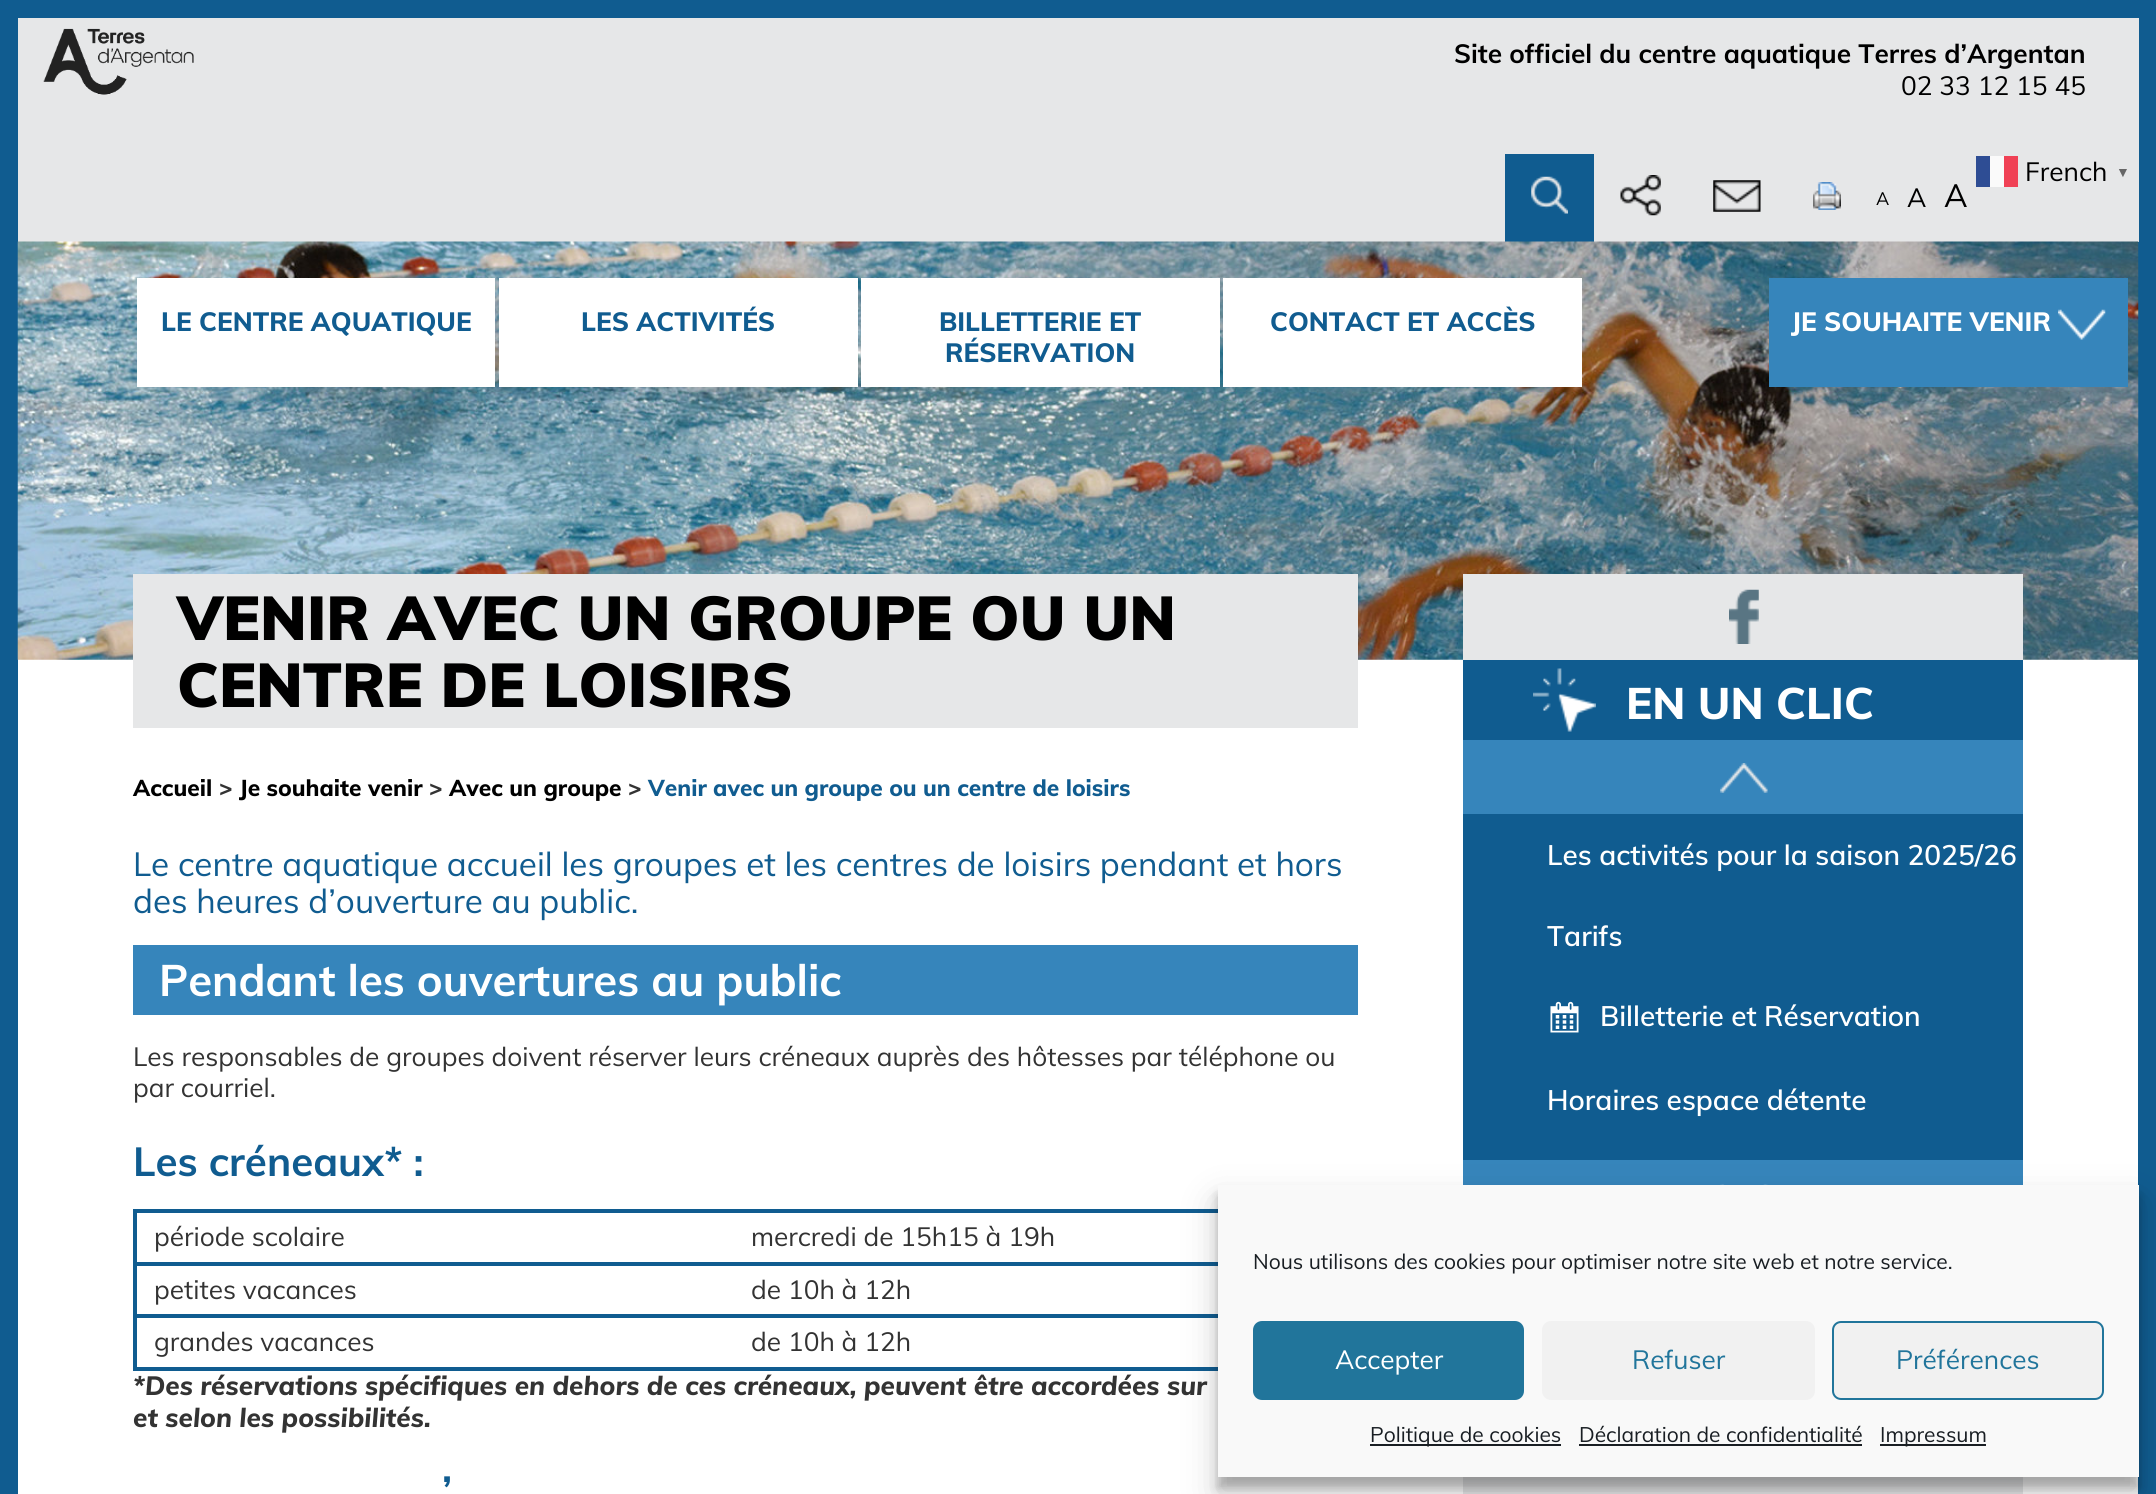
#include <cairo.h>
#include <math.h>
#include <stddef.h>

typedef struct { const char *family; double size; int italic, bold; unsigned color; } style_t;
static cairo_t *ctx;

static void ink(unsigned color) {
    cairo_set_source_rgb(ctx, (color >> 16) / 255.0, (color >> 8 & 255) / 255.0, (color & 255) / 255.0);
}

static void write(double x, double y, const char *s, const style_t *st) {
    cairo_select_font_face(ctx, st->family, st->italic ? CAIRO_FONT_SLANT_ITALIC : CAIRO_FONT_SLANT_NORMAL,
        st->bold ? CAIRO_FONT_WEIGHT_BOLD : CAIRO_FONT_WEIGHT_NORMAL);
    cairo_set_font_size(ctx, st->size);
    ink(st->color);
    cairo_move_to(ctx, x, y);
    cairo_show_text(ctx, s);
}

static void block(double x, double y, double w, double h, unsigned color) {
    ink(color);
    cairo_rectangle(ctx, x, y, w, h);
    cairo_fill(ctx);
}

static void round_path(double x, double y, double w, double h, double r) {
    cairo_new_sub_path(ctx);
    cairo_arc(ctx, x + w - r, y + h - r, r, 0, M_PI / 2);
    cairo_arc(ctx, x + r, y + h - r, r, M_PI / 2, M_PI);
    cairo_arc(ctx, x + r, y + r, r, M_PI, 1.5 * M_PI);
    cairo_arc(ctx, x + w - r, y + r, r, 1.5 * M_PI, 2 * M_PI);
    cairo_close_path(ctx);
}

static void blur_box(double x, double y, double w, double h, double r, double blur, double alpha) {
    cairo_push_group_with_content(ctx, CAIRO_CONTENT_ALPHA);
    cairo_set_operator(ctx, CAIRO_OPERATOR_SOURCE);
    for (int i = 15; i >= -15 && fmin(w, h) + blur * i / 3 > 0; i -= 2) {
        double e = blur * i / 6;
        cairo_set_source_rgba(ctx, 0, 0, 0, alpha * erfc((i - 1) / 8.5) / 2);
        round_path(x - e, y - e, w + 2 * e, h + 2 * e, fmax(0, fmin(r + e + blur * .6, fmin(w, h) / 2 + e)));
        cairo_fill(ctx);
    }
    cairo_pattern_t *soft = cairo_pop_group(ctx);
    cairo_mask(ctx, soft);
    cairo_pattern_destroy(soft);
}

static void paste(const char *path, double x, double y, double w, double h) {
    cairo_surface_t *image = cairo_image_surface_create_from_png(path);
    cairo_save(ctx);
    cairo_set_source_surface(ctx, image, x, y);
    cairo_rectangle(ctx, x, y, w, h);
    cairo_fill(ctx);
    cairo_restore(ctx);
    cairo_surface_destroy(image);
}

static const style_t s1 = {"Muli", 26.25, 0, 1, 0x000000};
static const style_t s2 = {"Muli", 26.25, 0, 0, 0x000000};
static const style_t s3 = {"Liberation Sans", 14, 0, 1, 0x666666};
static const style_t s4 = {"Muli", 18, 0, 0, 0x000000};
static const style_t s5 = {"Muli", 32, 0, 0, 0x000000};
static const style_t s6 = {"Muli ExtraBold", 26.25, 0, 0, 0x105c90};
static const style_t s7 = {"Muli ExtraBold", 26.25, 0, 0, 0xffffff};
static const style_t s8 = {"Muli Black", 61.25, 0, 0, 0x000000};
static const style_t s9 = {"Muli ExtraBold", 22.75, 0, 0, 0x000000};
static const style_t s10 = {"Muli ExtraBold", 22.75, 0, 0, 0x333333};
static const style_t s11 = {"Muli ExtraBold", 22.75, 0, 0, 0x105c90};
static const style_t s12 = {"Muli", 33.25, 0, 0, 0x105c90};
static const style_t s13 = {"Muli", 43.75, 0, 1, 0xffffff};
static const style_t s14 = {"Muli", 26.25, 0, 0, 0x333333};
static const style_t s15 = {"Muli", 40.25, 0, 1, 0x105c90};
static const style_t s16 = {"Muli ExtraBold", 26.25, 1, 0, 0x333333};
static const style_t s17 = {"Muli ExtraBold", 43.75, 0, 0, 0xffffff};
static const style_t s18 = {"Muli SemiBold", 28, 0, 0, 0xffffff};
static const style_t s19 = {"Muli", 21, 0, 0, 0x191e23};
static const style_t s20 = {"Muli", 26.25, 0, 0, 0xffffff};
static const style_t s21 = {"Muli", 26.25, 0, 0, 0x21759b};

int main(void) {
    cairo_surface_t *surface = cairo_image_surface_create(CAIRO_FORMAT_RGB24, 2156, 1494);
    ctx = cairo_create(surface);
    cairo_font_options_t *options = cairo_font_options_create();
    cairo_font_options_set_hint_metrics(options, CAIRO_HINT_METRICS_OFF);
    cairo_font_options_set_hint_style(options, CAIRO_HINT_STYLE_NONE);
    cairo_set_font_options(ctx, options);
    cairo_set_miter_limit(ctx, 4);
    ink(0xffffff);
    cairo_paint(ctx);
    cairo_rectangle(ctx, 9, 9, 2138, 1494);
    ink(0x105c90);
    cairo_set_line_width(ctx, 18);
    cairo_stroke(ctx);
    block(18, 18, 2121, 224, 0xe6e7e8);
    paste("pic1.png", 43, 28, 151, 67);
    write(1454, 63, "Site officiel du centre aquatique Terres d’Argentan", &s1);
    write(1901, 95, "02 33 12 15 45", &s2);
    block(1505, 154, 89, 88, 0x105c90);
    paste("pic2.png", 1531, 176, 37, 38);
    write(2025, 181, "French", &s2);
    block(1990, 156, 14, 31, 0xfafafa);
    block(1976, 156, 14, 31, 0x2e4d94);
    block(2004, 156, 14, 31, 0xf04155);
    write(2116, 177, "▼", &s3);
    paste("pic3.png", 1620, 175, 41, 41);
    paste("pic4.png", 1713, 180, 48, 32);
    paste("pic5.png", 1813, 182, 28, 28);
    write(1876, 205, "A", &s4);
    write(1907, 207, "A", &s2);
    write(1944, 207, "A", &s5);
    paste("pic6.png", 17, 241, 2122, 419);
    block(137, 278, 358, 109, 0xffffff);
    write(161, 331, "LE CENTRE AQUATIQUE", &s6);
    block(499, 278, 359, 109, 0xffffff);
    write(581, 331, "LES ACTIVITÉS", &s6);
    block(861, 278, 359, 109, 0xffffff);
    write(939, 331, "BILLETTERIE ET", &s6);
    write(945, 362, "RÉSERVATION", &s6);
    block(1223, 278, 359, 109, 0xffffff);
    write(1270, 331, "CONTACT ET ACCÈS", &s6);
    block(1769, 278, 359, 109, 0x3685bb);
    write(1791, 331, "JE SOUHAITE VENIR", &s7);
    paste("pic7.png", 2058, 309, 48, 31);
    block(133, 574, 1225, 154, 0xe6e7e8);
    write(177, 640, "VENIR AVEC UN GROUPE OU UN", &s8);
    write(177, 707, "CENTRE DE LOISIRS", &s8);
    write(133, 796, "Accueil", &s9);
    write(219, 796, ">", &s10);
    write(239, 796, "Je souhaite venir", &s9);
    write(429, 796, ">", &s10);
    write(449, 796, "Avec un groupe", &s9);
    write(628, 796, ">", &s10);
    write(648, 796, "Venir avec un groupe ou un centre de loisirs", &s11);
    write(133, 876, "Le centre aquatique accueil les groupes et les centres de loisirs pendant et hors", &s12);
    write(133, 913, "des heures d’ouverture au public.", &s12);
    block(133, 945, 1225, 70, 0x3685bb);
    write(159, 996, "Pendant les ouvertures au public", &s13);
    write(133, 1066, "Les responsables de groupes doivent réserver leurs créneaux auprès des hôtesses par téléphone ou", &s14);
    write(133, 1097, "par courriel.", &s14);
    write(133, 1176, "Les créneaux* :", &s15);
    block(133, 1209, 1085, 4, 0x105c90);
    block(133, 1262, 1085, 4, 0x105c90);
    block(133, 1314, 1085, 4, 0x105c90);
    block(133, 1367, 1085, 4, 0x105c90);
    block(133, 1314, 4, 56, 0x105c90);
    block(133, 1262, 4, 56, 0x105c90);
    block(133, 1209, 4, 56, 0x105c90);
    write(154, 1246, "période scolaire", &s14);
    write(751, 1246, "mercredi de 15h15 à 19h", &s14);
    write(154, 1299, "petites vacances", &s14);
    write(751, 1299, "de 10h à 12h", &s14);
    write(154, 1351, "grandes vacances", &s14);
    write(751, 1351, "de 10h à 12h", &s14);
    write(133, 1395, "*Des réservations spécifiques en dehors de ces créneaux, peuvent être accordées sur", &s16);
    write(133, 1427, "et selon les possibilités.", &s16);
    write(442, 1505, "’", &s15);
    block(1463, 574, 560, 86, 0xe6e7e8);
    paste("pic8.png", 1729, 589, 30, 55);
    block(1463, 660, 560, 80, 0x105c90);
    paste("pic9.png", 1533, 668, 63, 64);
    write(1626, 719, "EN UN CLIC", &s17);
    block(1463, 740, 560, 74, 0x3685bb);
    paste("pic10.png", 1720, 763, 48, 30);
    block(1463, 814, 560, 346, 0x105c90);
    write(1547, 865, "Les activités pour la saison 2025/26", &s18);
    write(1547, 946, "Tarifs", &s18);
    paste("pic11.png", 1550, 1001, 29, 32);
    write(1600, 1026, "Billetterie et Réservation", &s18);
    write(1547, 1110, "Horaires espace détente", &s18);
    block(1463, 1160, 560, 25, 0x3685bb);
    paste("pic12.png", 1720, 1184, 48, 1);
    block(1463, 1477, 560, 17, 0xe6e7e8);
    ink(0x000000);
    blur_box(1218, 1195, 921, 293, 0, 5, 0.23);
    blur_box(1218, 1202, 921, 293, 0, 17.5, 0.19);
    block(1218, 1185, 921, 292, 0xf9f9f9);
    write(1253, 1269, "Nous utilisons des cookies pour optimiser notre site web et notre service.", &s19);
    ink(0x21759b);
    round_path(1254, 1322, 269, 77, 8);
    cairo_fill_preserve(ctx);
    cairo_set_line_width(ctx, 2);
    cairo_stroke(ctx);
    write(1335, 1369, "Accepter", &s20);
    ink(0xf1f1f1);
    round_path(1542, 1321, 273, 79, 9);
    cairo_fill(ctx);
    write(1632, 1369, "Refuser", &s21);
    ink(0xf1f1f1);
    round_path(1833, 1322, 270, 77, 8);
    cairo_fill_preserve(ctx);
    ink(0x21759b);
    cairo_stroke(ctx);
    write(1896, 1369, "Préférences", &s21);
    block(1370, 1444, 191, 2, 0x191e23);
    write(1370, 1442, "Politique de cookies", &s19);
    write(1579, 1442, "Déclaration de confidentialité", &s19);
    block(1579, 1444, 283, 2, 0x191e23);
    block(1880, 1444, 106, 2, 0x191e23);
    write(1880, 1442, "Impressum", &s19);
    cairo_surface_write_to_png(surface, "screenshot.png");
    cairo_font_options_destroy(options);
    cairo_destroy(ctx);
    cairo_surface_destroy(surface);
    return 0;
}
